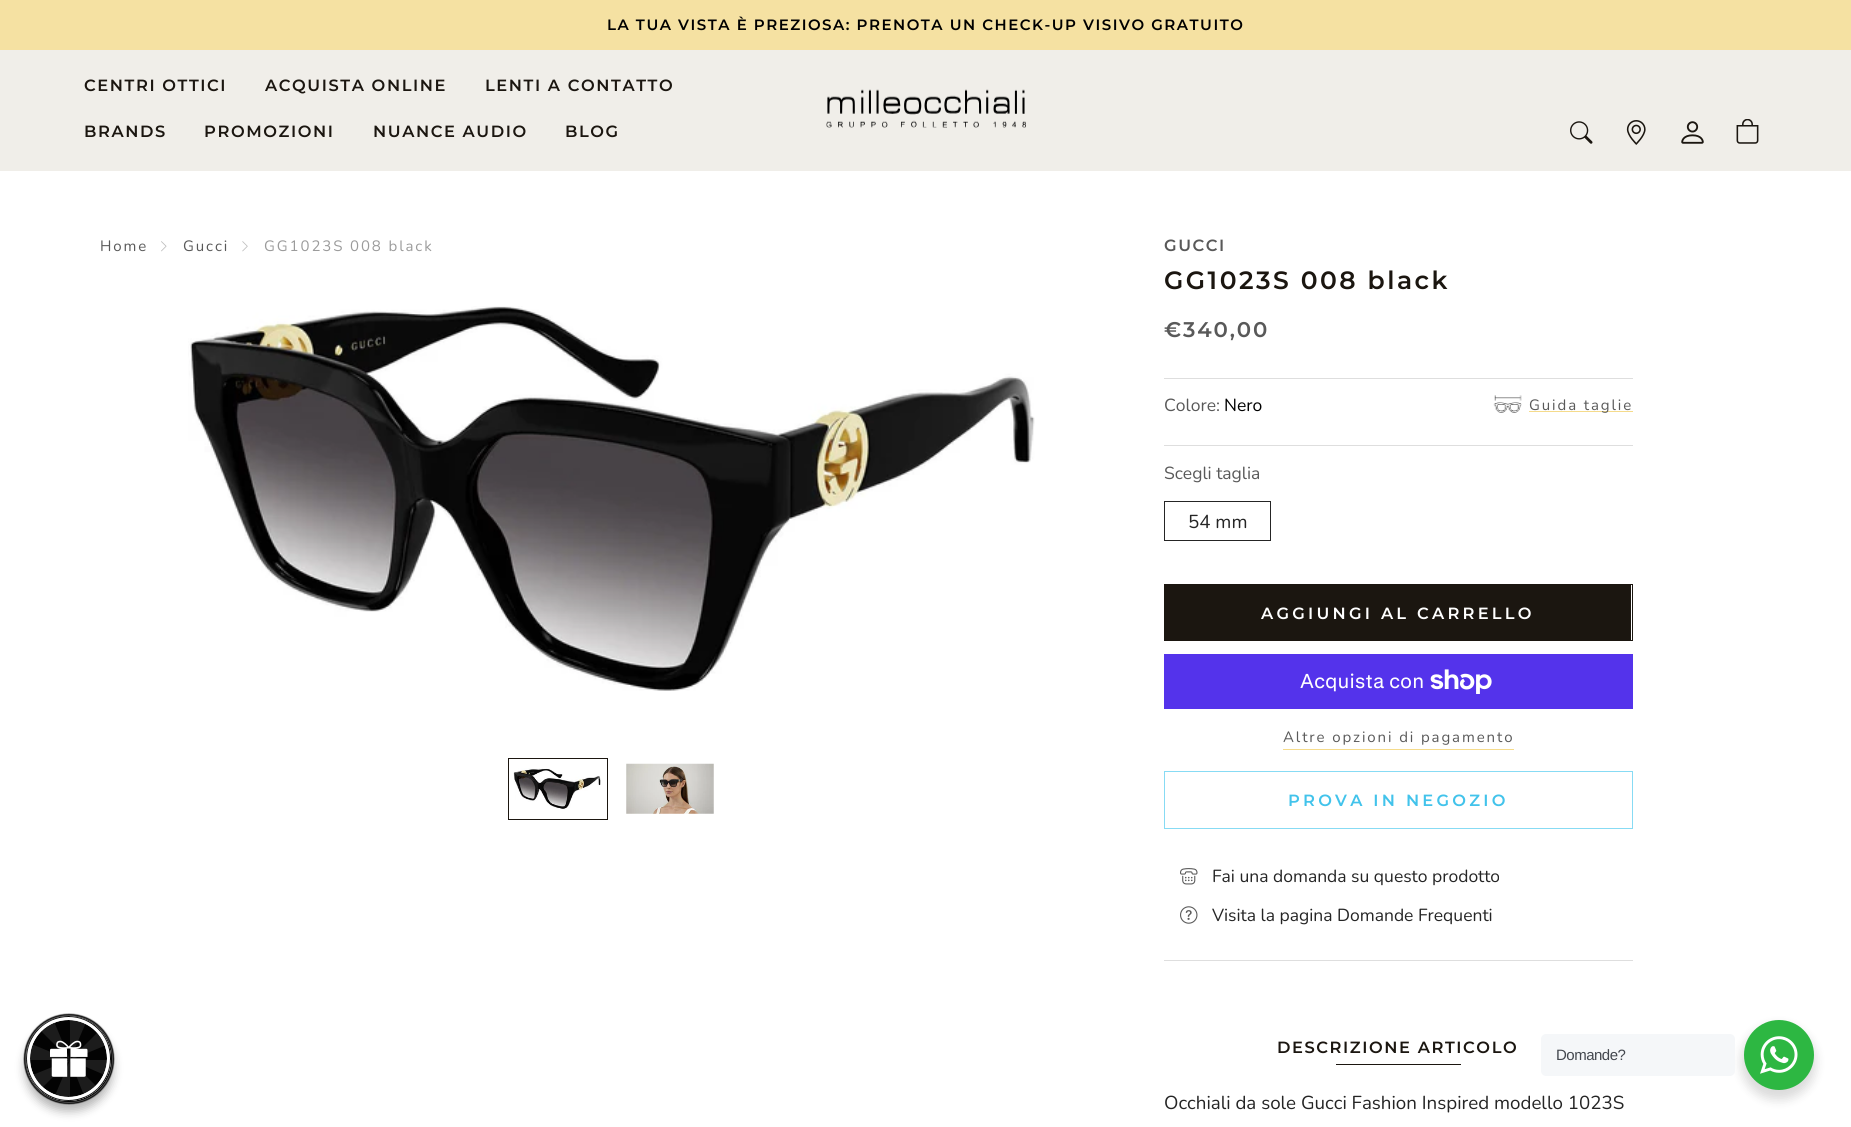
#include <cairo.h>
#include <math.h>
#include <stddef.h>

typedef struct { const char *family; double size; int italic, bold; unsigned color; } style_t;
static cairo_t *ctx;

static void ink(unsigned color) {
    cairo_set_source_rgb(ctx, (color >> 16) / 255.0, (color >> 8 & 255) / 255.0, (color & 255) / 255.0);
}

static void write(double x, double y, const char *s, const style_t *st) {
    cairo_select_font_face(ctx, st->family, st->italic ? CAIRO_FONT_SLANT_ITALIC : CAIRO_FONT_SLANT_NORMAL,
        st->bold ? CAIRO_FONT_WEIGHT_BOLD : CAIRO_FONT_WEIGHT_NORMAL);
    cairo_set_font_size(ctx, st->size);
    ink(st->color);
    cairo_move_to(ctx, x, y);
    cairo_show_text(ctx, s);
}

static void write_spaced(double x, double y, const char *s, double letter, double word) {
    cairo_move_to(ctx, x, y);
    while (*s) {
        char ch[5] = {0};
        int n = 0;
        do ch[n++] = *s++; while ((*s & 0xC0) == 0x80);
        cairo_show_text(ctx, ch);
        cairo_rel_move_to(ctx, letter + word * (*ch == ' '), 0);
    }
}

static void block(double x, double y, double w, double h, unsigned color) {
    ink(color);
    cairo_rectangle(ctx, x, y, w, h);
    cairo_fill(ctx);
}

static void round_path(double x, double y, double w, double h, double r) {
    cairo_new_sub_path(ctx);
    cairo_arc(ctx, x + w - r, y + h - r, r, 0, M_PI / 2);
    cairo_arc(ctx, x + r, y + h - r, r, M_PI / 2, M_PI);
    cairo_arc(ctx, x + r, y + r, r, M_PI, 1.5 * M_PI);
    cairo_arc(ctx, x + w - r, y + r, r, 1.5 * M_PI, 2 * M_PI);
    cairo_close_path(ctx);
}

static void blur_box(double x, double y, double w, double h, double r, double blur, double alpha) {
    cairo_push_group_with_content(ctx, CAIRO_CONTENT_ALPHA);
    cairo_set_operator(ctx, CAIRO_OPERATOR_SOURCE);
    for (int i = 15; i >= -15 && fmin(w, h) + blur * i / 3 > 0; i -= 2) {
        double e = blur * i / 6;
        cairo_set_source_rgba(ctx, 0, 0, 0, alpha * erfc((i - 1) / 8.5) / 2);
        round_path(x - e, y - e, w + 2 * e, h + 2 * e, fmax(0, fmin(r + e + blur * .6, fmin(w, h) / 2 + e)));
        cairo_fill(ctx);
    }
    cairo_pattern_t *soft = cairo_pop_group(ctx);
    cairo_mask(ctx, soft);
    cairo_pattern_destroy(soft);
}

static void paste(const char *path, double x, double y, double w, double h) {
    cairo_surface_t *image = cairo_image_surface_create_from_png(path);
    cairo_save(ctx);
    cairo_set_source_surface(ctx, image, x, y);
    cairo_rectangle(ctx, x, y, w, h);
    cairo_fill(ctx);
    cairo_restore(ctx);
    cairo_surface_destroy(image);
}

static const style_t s1 = {"Nunito", 17.5, 0, 0, 0x595959};
static const style_t s2 = {"Nunito", 17.5, 0, 0, 0x000000};
static const style_t s3 = {"Nunito", 18.75, 0, 0, 0x252525};
static const style_t s4 = {"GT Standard", 20, 0, 0, 0xffffff};
static const style_t s5 = {"Nunito", 17.5, 0, 0, 0x252525};

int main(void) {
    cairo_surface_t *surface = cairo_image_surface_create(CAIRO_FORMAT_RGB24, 1851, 1127);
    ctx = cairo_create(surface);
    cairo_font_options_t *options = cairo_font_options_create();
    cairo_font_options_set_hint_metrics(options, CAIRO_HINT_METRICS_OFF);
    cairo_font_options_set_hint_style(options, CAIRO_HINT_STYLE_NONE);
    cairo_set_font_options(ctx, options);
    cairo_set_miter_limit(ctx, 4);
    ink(0xffffff);
    cairo_paint(ctx);
    ink(0x000000);
    blur_box(25, 1024, 88, 87, 43.5, 5, 0.3);
    ink(0x030303);
    blur_box(24, 1014, 90, 90, 45, 0.5, 1);
    ink(0x030303);
    cairo_arc(ctx, 69, 1059, 44, 0, 2 * M_PI);
    cairo_fill(ctx);
    cairo_arc(ctx, 68.5, 1058.5, 40.5, 0, 2 * M_PI);
    ink(0xffffff);
    cairo_set_line_width(ctx, 4);
    cairo_stroke(ctx);
    cairo_arc(ctx, 68.5, 1058.5, 40.5, 0, 2 * M_PI);
    cairo_stroke(ctx);
    cairo_arc(ctx, 68.5, 1058.5, 42, 0, 2 * M_PI);
    ink(0x030303);
    cairo_set_line_width(ctx, 1);
    cairo_stroke(ctx);
    cairo_arc(ctx, 69, 1059, 43.5, 0, 2 * M_PI);
    ink(0x4a4a4a);
    cairo_stroke(ctx);
    cairo_set_source_rgba(ctx, 1, 1, 1, 0.1);
    cairo_new_path(ctx);
    cairo_move_to(ctx, 53, 1019);
    cairo_curve_to(ctx, 48, 1021, 43, 1024, 38, 1028);
    cairo_line_to(ctx, 70, 1060);
    cairo_line_to(ctx, 29, 1043);
    cairo_curve_to(ctx, 27, 1048, 26, 1054, 26, 1060);
    cairo_line_to(ctx, 70, 1060);
    cairo_line_to(ctx, 30, 1076);
    cairo_curve_to(ctx, 32, 1082, 36, 1086, 40, 1090);
    cairo_line_to(ctx, 70, 1060);
    cairo_line_to(ctx, 54, 1098);
    cairo_curve_to(ctx, 59, 1100, 64, 1101, 70, 1101);
    cairo_line_to(ctx, 70, 1060);
    cairo_line_to(ctx, 85, 1098);
    cairo_curve_to(ctx, 90, 1095, 95, 1092, 99, 1089);
    cairo_line_to(ctx, 70, 1060);
    cairo_line_to(ctx, 107, 1076);
    cairo_curve_to(ctx, 110, 1071, 111, 1066, 111, 1060);
    cairo_line_to(ctx, 70, 1060);
    cairo_line_to(ctx, 109, 1044);
    cairo_curve_to(ctx, 107, 1039, 104, 1034, 100, 1030);
    cairo_line_to(ctx, 70, 1060);
    cairo_line_to(ctx, 87, 1020);
    cairo_curve_to(ctx, 82, 1018, 76, 1016, 70, 1016);
    cairo_line_to(ctx, 70, 1060);
    cairo_close_path(ctx);
    cairo_fill(ctx);
    paste("pic1.png", 50, 1040, 38, 37);
    block(0, 0, 1851, 50, 0xf5e1a2);
    cairo_select_font_face(ctx, "Montserrat SemiBold", CAIRO_FONT_SLANT_NORMAL, CAIRO_FONT_WEIGHT_NORMAL);
    cairo_set_font_size(ctx, 15);
    ink(0x000000);
    write_spaced(607, 30, "LA TUA VISTA È PREZIOSA: PRENOTA UN CHECK-UP VISIVO GRATUITO", 1.5, 0);
    block(0, 50, 1851, 121, 0xf0eee9);
    cairo_set_font_size(ctx, 16.25);
    ink(0x1b1610);
    write_spaced(84, 91, "CENTRI OTTICI", 1.6, 0);
    write_spaced(265, 91, "ACQUISTA ONLINE", 1.6, 0);
    write_spaced(485, 91, "LENTI A CONTATTO", 1.6, 0);
    write_spaced(84, 137, "BRANDS", 1.6, 0);
    write_spaced(204, 137, "PROMOZIONI", 1.6, 0);
    write_spaced(373, 137, "NUANCE AUDIO", 1.6, 0);
    write_spaced(565, 137, "BLOG", 1.6, 0);
    paste("pic2.png", 826, 89, 200, 39);
    paste("pic3.png", 1570, 121, 23, 23);
    paste("pic4.png", 1626, 120, 20, 25);
    paste("pic5.png", 1681, 121, 23, 23);
    paste("pic6.png", 1736, 119, 23, 25);
    cairo_select_font_face(ctx, "Nunito", CAIRO_FONT_SLANT_NORMAL, CAIRO_FONT_WEIGHT_NORMAL);
    cairo_set_font_size(ctx, 15);
    ink(0x595959);
    write_spaced(100, 251, "Home", 1.9, 0);
    paste("pic7.png", 161, 241, 6, 11);
    write_spaced(183, 251, "Gucci", 1.9, 0);
    paste("pic8.png", 242, 241, 6, 11);
    ink(0x9b9b9b);
    write_spaced(264, 251, "GG1023S 008 black", 1.9, 0);
    paste("pic9.png", 188, 306, 847, 385);
    paste("pic10.png", 513, 768, 88, 41);
    cairo_rectangle(ctx, 508.5, 758.5, 99, 61);
    ink(0x1b1610);
    cairo_stroke(ctx);
    paste("pic11.png", 626, 763, 88, 51);
    block(1164, 378, 469, 1, 0xdedede);
    cairo_select_font_face(ctx, "Montserrat SemiBold", CAIRO_FONT_SLANT_NORMAL, CAIRO_FONT_WEIGHT_NORMAL);
    cairo_set_font_size(ctx, 16.25);
    ink(0x595959);
    write_spaced(1164, 251, "GUCCI", 1.6, 0);
    cairo_set_font_size(ctx, 25);
    ink(0x1b1610);
    write_spaced(1164, 289, "GG1023S 008 black", 2.5, 0);
    cairo_set_font_size(ctx, 21.25);
    ink(0x595959);
    write_spaced(1164, 337, "€340,00", 1.9, 0);
    write(1164, 411, "Colore:", &s1);
    write(1224, 411, "Nero", &s2);
    paste("pic12.png", 1493, 395, 29, 18);
    block(1529, 411, 104, 1, 0xf5db8b);
    cairo_set_font_size(ctx, 15);
    ink(0x595959);
    write_spaced(1529, 410, "Guida taglie", 1.9, 0);
    block(1164, 445, 469, 1, 0xdedede);
    write(1164, 479, "Scegli taglia", &s1);
    cairo_rectangle(ctx, 1164.5, 501.5, 106, 39);
    ink(0x252525);
    cairo_stroke(ctx);
    write(1188, 528, "54 mm", &s3);
    cairo_rectangle(ctx, 1164.5, 584.5, 468, 56);
    ink(0x1b1610);
    cairo_stroke(ctx);
    block(1165, 585, 466, 55, 0x1b1610);
    cairo_select_font_face(ctx, "Montserrat SemiBold", CAIRO_FONT_SLANT_NORMAL, CAIRO_FONT_WEIGHT_NORMAL);
    cairo_set_font_size(ctx, 16.25);
    ink(0xffffff);
    write_spaced(1261, 619, "AGGIUNGI AL CARRELLO", 3.25, 0);
    block(1164, 654, 469, 55, 0x5433eb);
    write(1300, 688, "Acquista con", &s4);
    paste("pic13.png", 1430, 669, 62, 25);
    cairo_select_font_face(ctx, "Nunito", CAIRO_FONT_SLANT_NORMAL, CAIRO_FONT_WEIGHT_NORMAL);
    cairo_set_font_size(ctx, 15);
    ink(0x595959);
    write_spaced(1283, 742, "Altre opzioni di pagamento", 1.9, 0);
    block(1283, 749, 231, 1, 0xf5db8b);
    cairo_rectangle(ctx, 1164.5, 771.5, 468, 57);
    ink(0x87dbf4);
    cairo_stroke(ctx);
    cairo_select_font_face(ctx, "Montserrat SemiBold", CAIRO_FONT_SLANT_NORMAL, CAIRO_FONT_WEIGHT_NORMAL);
    cairo_set_font_size(ctx, 16.25);
    ink(0x42c3eb);
    write_spaced(1288, 806, "PROVA IN NEGOZIO", 3.25, 0);
    paste("pic14.png", 1180, 868, 18, 17);
    write(1212, 882, "Fai una domanda su questo prodotto", &s5);
    paste("pic15.png", 1180, 906, 18, 18);
    write(1212, 921, "Visita la pagina Domande Frequenti", &s5);
    block(1164, 960, 469, 1, 0xdedede);
    cairo_select_font_face(ctx, "Montserrat SemiBold", CAIRO_FONT_SLANT_NORMAL, CAIRO_FONT_WEIGHT_NORMAL);
    cairo_set_font_size(ctx, 16.25);
    ink(0x1b1610);
    write_spaced(1277, 1053, "DESCRIZIONE ARTICOLO", 1.6, 0);
    block(1336, 1064, 125, 1, 0x1b1610);
    write(1164, 1109, "Occhiali da sole Gucci Fashion Inspired modello 1023S", &s3);
    ink(0x000000);
    blur_box(1741, 1025, 75, 75, 37.5, 5, 0.14);
    ink(0xf5f7f9);
    round_path(1541, 1034, 194, 42, 5);
    cairo_fill(ctx);
    cairo_select_font_face(ctx, "Liberation Sans", CAIRO_FONT_SLANT_NORMAL, CAIRO_FONT_WEIGHT_NORMAL);
    cairo_set_font_size(ctx, 15);
    ink(0x43474e);
    write_spaced(1556, 1060, "Domande?", -0.5, 0);
    ink(0x2db742);
    cairo_new_path(ctx);
    cairo_arc(ctx, 1779, 1055, 35, 0, 2 * M_PI);
    cairo_fill(ctx);
    paste("pic16.png", 1760, 1036, 38, 38);
    cairo_surface_write_to_png(surface, "screenshot.png");
    cairo_font_options_destroy(options);
    cairo_destroy(ctx);
    cairo_surface_destroy(surface);
    return 0;
}
